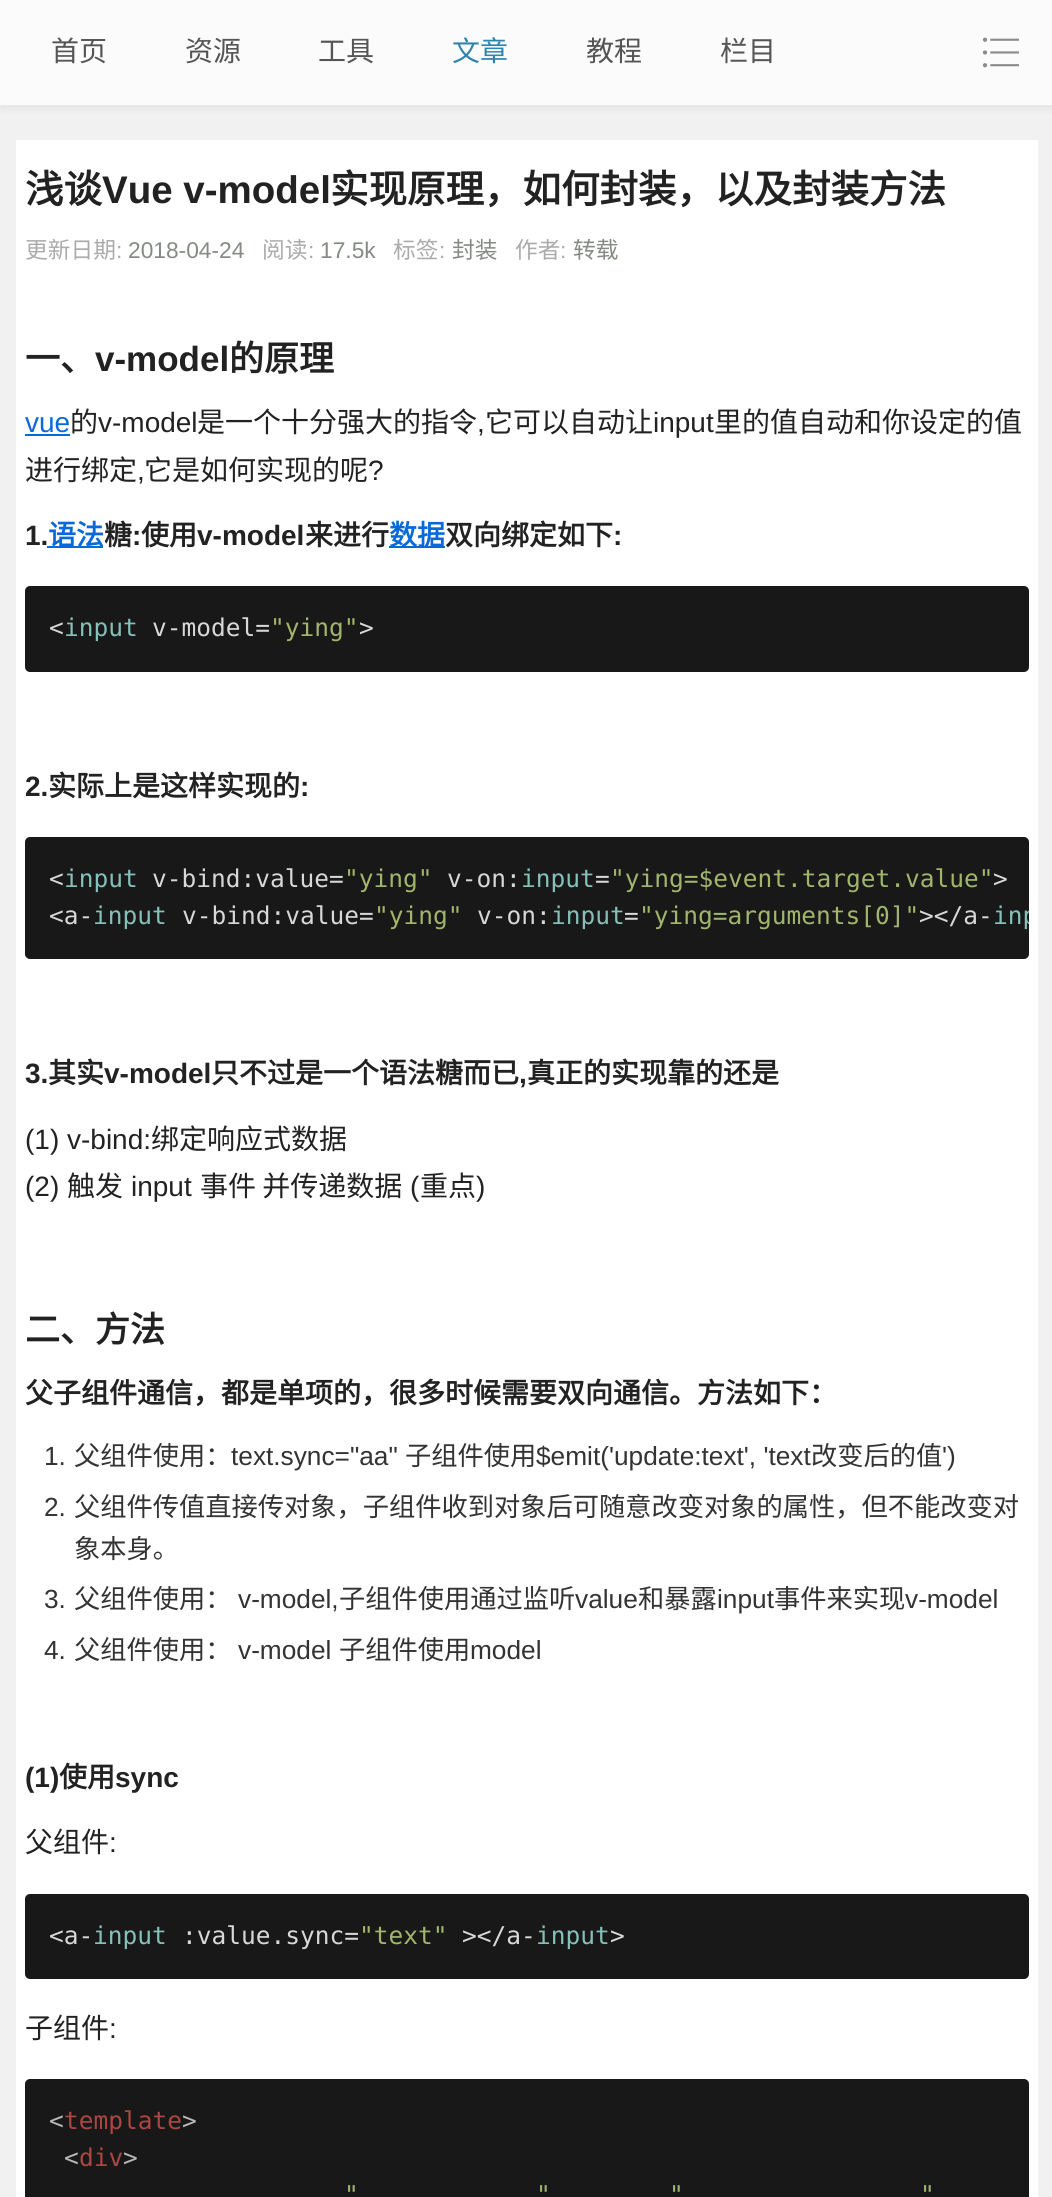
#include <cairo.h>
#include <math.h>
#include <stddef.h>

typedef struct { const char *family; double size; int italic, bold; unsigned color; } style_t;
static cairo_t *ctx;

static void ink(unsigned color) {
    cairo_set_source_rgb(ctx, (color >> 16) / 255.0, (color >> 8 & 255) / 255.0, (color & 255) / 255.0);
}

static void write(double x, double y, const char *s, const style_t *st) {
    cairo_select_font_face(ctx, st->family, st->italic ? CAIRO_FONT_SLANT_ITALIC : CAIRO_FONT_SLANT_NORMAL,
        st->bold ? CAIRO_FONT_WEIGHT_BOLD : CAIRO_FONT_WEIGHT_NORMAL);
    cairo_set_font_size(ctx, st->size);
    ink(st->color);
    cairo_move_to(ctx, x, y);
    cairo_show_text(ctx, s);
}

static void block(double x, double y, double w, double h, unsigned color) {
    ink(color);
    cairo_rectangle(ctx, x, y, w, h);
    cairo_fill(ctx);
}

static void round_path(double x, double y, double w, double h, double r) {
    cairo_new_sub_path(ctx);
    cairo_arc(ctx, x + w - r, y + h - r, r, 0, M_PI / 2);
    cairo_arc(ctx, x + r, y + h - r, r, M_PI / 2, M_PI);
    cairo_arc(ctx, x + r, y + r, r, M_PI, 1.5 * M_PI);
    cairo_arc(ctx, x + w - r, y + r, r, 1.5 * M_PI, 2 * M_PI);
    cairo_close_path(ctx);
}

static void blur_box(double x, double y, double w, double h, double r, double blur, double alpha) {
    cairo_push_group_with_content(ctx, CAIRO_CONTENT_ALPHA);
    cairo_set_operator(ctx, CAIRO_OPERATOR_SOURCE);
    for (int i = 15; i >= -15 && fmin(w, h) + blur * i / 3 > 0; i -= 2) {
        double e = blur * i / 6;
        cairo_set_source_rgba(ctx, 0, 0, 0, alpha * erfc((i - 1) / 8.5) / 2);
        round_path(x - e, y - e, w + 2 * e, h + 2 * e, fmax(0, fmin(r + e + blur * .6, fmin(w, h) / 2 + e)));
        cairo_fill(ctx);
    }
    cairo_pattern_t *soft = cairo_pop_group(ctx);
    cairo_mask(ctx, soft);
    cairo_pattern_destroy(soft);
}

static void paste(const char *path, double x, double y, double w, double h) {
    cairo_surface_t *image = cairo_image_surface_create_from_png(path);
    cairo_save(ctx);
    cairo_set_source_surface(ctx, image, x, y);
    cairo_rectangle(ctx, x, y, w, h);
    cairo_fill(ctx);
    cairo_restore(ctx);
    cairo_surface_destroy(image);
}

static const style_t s1 = {"Noto Sans CJK SC", 28, 0, 0, 0x555555};
static const style_t s2 = {"Noto Sans CJK SC", 28, 0, 0, 0x2f83ad};
static const style_t s3 = {"Noto Sans CJK SC", 38.5, 0, 1, 0x222222};
static const style_t s4 = {"Liberation Sans", 38.5, 0, 1, 0x222222};
static const style_t s5 = {"Noto Sans CJK SC", 22.75, 0, 0, 0xababab};
static const style_t s6 = {"Liberation Sans", 22.75, 0, 0, 0xababab};
static const style_t s7 = {"Liberation Sans", 22.75, 0, 0, 0x858a84};
static const style_t s8 = {"Noto Sans CJK SC", 22.75, 0, 0, 0x858a84};
static const style_t s9 = {"Noto Sans CJK SC", 35, 0, 1, 0x222222};
static const style_t s10 = {"Liberation Sans", 35, 0, 1, 0x222222};
static const style_t s11 = {"Liberation Sans", 28, 0, 0, 0x0969da};
static const style_t s12 = {"Noto Sans CJK SC", 28, 0, 0, 0x222222};
static const style_t s13 = {"Liberation Sans", 28, 0, 0, 0x222222};
static const style_t s14 = {"Liberation Sans", 28, 0, 1, 0x222222};
static const style_t s15 = {"Noto Sans CJK SC", 28, 0, 1, 0x0969da};
static const style_t s16 = {"Noto Sans CJK SC", 28, 0, 1, 0x222222};
static const style_t s17 = {"DejaVu Sans Mono", 24.5, 0, 0, 0xd8d8d8};
static const style_t s18 = {"DejaVu Sans Mono", 24.5, 0, 0, 0x86c1b9};
static const style_t s19 = {"DejaVu Sans Mono", 24.5, 0, 0, 0xa1b56c};
static const style_t s20 = {"Liberation Sans", 26.25, 0, 0, 0x333333};
static const style_t s21 = {"Noto Sans CJK SC", 26.25, 0, 0, 0x333333};
static const style_t s22 = {"DejaVu Sans Mono", 24.5, 0, 0, 0xb8b8b8};
static const style_t s23 = {"DejaVu Sans Mono", 24.5, 0, 0, 0xab4642};

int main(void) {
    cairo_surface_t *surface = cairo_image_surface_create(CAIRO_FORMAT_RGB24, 1052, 2197);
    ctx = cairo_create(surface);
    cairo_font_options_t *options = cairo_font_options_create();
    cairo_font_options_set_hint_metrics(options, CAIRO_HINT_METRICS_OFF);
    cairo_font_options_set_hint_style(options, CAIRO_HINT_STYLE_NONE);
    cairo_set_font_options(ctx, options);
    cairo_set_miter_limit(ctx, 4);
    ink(0xf1f1f1);
    cairo_paint(ctx);
    ink(0x000000);
    blur_box(0, 4, 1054, 105, 0, 3.5, 0.05);
    block(0, 0, 1052, 105, 0xfbfbfb);
    write(51, 61, "首页", &s1);
    write(185, 61, "资源", &s1);
    write(318, 61, "工具", &s1);
    write(452, 61, "文章", &s2);
    write(586, 61, "教程", &s1);
    write(720, 61, "栏目", &s1);
    paste("pic1.png", 982, 37, 37, 31);
    block(16, 140, 1022, 2057, 0xffffff);
    write(25, 203, "浅谈", &s3);
    write(102, 203, "Vue v-model", &s4);
    write(330, 203, "实现原理，如何封装，以及封装方法", &s3);
    write(25, 258, "更新日期", &s5);
    write(116, 258, ":", &s6);
    write(128, 258, "2018-04-24", &s7);
    write(262, 258, "阅读", &s5);
    write(308, 258, ":", &s6);
    write(320, 258, "17.5k", &s7);
    write(393, 258, "标签", &s5);
    write(439, 258, ":", &s6);
    write(452, 258, "封装", &s8);
    write(515, 258, "作者", &s5);
    write(560, 258, ":", &s6);
    write(573, 258, "转载", &s8);
    write(25, 371, "一、", &s9);
    write(95, 371, "v-model", &s10);
    write(229, 371, "的原理", &s9);
    write(25, 432, "vue", &s11);
    block(25, 434, 45, 2, 0x0969da);
    write(70, 432, "的", &s12);
    write(98, 432, "v-model", &s13);
    write(197, 432, "是一个十分强大的指令", &s12);
    write(477, 432, ",", &s13);
    write(485, 432, "它可以自动让", &s12);
    write(653, 432, "input", &s13);
    write(714, 432, "里的值自动和你设定的值", &s12);
    write(25, 480, "进行绑定", &s12);
    write(137, 480, ",", &s13);
    write(144, 480, "它是如何实现的呢", &s12);
    write(368, 480, "?", &s13);
    write(25, 545, "1.", &s14);
    block(47, 546, 56, 2, 0x0969da);
    write(48, 545, "语法", &s15);
    write(104, 545, "糖", &s16);
    write(132, 545, ":", &s14);
    write(141, 545, "使用", &s16);
    write(197, 545, "v-model", &s14);
    write(305, 545, "来进行", &s16);
    block(389, 546, 56, 2, 0x0969da);
    write(389, 545, "数据", &s15);
    write(445, 545, "双向绑定如下", &s16);
    write(613, 545, ":", &s14);
    ink(0x181818);
    round_path(25, 586, 1004, 86, 5);
    cairo_fill(ctx);
    write(49, 636, "<", &s17);
    write(64, 636, "input", &s18);
    write(152, 636, "v-model=", &s17);
    write(270, 636, "\"ying\"", &s19);
    write(359, 636, ">", &s17);
    write(25, 796, "2.", &s14);
    write(48, 796, "实际上是这样实现的", &s16);
    write(300, 796, ":", &s14);
    ink(0x181818);
    round_path(25, 837, 1004, 122, 5);
    cairo_fill(ctx);
    write(49, 887, "<", &s17);
    write(64, 887, "input", &s18);
    write(152, 887, "v-bind:value=", &s17);
    write(344, 887, "\"ying\"", &s19);
    write(447, 887, "v-on:", &s17);
    write(521, 887, "input", &s18);
    write(595, 887, "=", &s17);
    write(610, 887, "\"ying=$event.target.value\"", &s19);
    write(993, 887, ">", &s17);
    write(49, 924, "<a-", &s17);
    write(93, 924, "input", &s18);
    write(182, 924, "v-bind:value=", &s17);
    write(374, 924, "\"ying\"", &s19);
    write(477, 924, "v-on:", &s17);
    write(551, 924, "input", &s18);
    write(624, 924, "=", &s17);
    write(639, 924, "\"ying=arguments[0]\"", &s19);
    write(919, 924, "></a-", &s17);
    cairo_save(ctx);
    round_path(25, 837, 1004, 122, 5);
    cairo_clip(ctx);
    write(993, 924, "inp", &s18);
    cairo_restore(ctx);
    write(25, 1083, "3.", &s14);
    write(48, 1083, "其实", &s16);
    write(104, 1083, "v-model", &s14);
    write(211, 1083, "只不过是一个语法糖而已", &s16);
    write(519, 1083, ",", &s14);
    write(527, 1083, "真正的实现靠的还是", &s16);
    write(25, 1149, "(1) v-bind:", &s13);
    write(151, 1149, "绑定响应式数据", &s12);
    write(25, 1196, "(2)", &s13);
    write(67, 1196, "触发", &s12);
    write(131, 1196, "input", &s13);
    write(200, 1196, "事件 并传递数据", &s12);
    write(410, 1196, "(", &s13);
    write(420, 1196, "重点", &s12);
    write(476, 1196, ")", &s13);
    write(25, 1342, "二、方法", &s9);
    write(25, 1403, "父子组件通信，都是单项的，很多时候需要双向通信。方法如下：", &s16);
    write(44, 1465, "1.", &s20);
    write(74, 1465, "父组件使用：", &s21);
    write(231, 1465, "text.sync=\"aa\"", &s20);
    write(405, 1465, "子组件使用", &s21);
    write(536, 1465, "$emit('update:text', 'text", &s20);
    write(811, 1465, "改变后的值", &s21);
    write(942, 1465, "')", &s20);
    write(44, 1516, "2.", &s20);
    write(74, 1516, "父组件传值直接传对象，子组件收到对象后可随意改变对象的属性，但不能改变对", &s21);
    write(74, 1558, "象本身。", &s21);
    write(44, 1608, "3.", &s20);
    write(74, 1608, "父组件使用：", &s21);
    write(238, 1608, "v-model,", &s20);
    write(339, 1608, "子组件使用通过监听", &s21);
    write(575, 1608, "value", &s20);
    write(638, 1608, "和暴露", &s21);
    write(717, 1608, "input", &s20);
    write(774, 1608, "事件来实现", &s21);
    write(905, 1608, "v-model", &s20);
    write(44, 1659, "4.", &s20);
    write(74, 1659, "父组件使用：", &s21);
    write(238, 1659, "v-model", &s20);
    write(339, 1659, "子组件使用", &s21);
    write(470, 1659, "model", &s20);
    write(25, 1787, "(1)", &s14);
    write(59, 1787, "使用", &s16);
    write(115, 1787, "sync", &s14);
    write(25, 1852, "父组件", &s12);
    write(109, 1852, ":", &s13);
    ink(0x181818);
    round_path(25, 1894, 1004, 85, 5);
    cairo_fill(ctx);
    write(49, 1944, "<a-", &s17);
    write(93, 1944, "input", &s18);
    write(182, 1944, ":value.sync=", &s17);
    write(359, 1944, "\"text\"", &s19);
    write(462, 1944, "></a-", &s17);
    write(536, 1944, "input", &s18);
    write(610, 1944, ">", &s17);
    write(25, 2038, "子组件", &s12);
    write(109, 2038, ":", &s13);
    ink(0x181818);
    round_path(25, 2079, 1004, 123, 5);
    cairo_fill(ctx);
    write(49, 2129, "<", &s22);
    write(64, 2129, "template", &s23);
    write(182, 2129, ">", &s22);
    write(64, 2166, "<", &s22);
    write(79, 2166, "div", &s23);
    write(123, 2166, ">", &s22);
    write(344, 2203, "\"", &s19);
    write(536, 2203, "\"", &s19);
    write(669, 2203, "\"", &s19);
    write(920, 2203, "\"", &s19);
    cairo_surface_write_to_png(surface, "screenshot.png");
    cairo_font_options_destroy(options);
    cairo_destroy(ctx);
    cairo_surface_destroy(surface);
    return 0;
}
